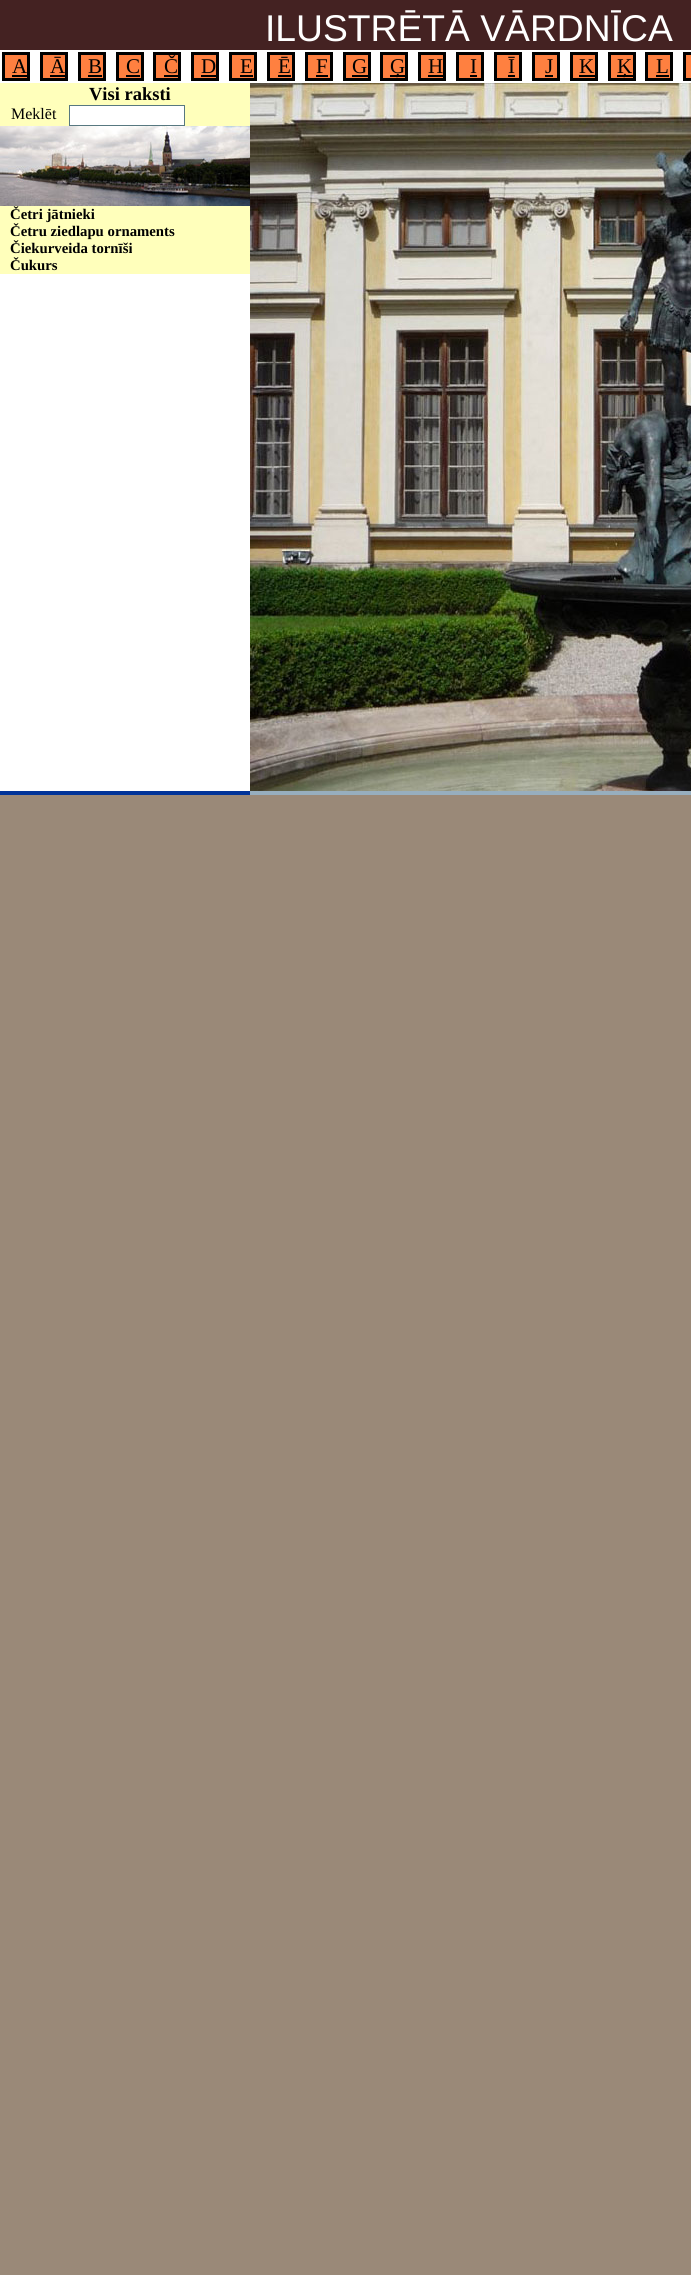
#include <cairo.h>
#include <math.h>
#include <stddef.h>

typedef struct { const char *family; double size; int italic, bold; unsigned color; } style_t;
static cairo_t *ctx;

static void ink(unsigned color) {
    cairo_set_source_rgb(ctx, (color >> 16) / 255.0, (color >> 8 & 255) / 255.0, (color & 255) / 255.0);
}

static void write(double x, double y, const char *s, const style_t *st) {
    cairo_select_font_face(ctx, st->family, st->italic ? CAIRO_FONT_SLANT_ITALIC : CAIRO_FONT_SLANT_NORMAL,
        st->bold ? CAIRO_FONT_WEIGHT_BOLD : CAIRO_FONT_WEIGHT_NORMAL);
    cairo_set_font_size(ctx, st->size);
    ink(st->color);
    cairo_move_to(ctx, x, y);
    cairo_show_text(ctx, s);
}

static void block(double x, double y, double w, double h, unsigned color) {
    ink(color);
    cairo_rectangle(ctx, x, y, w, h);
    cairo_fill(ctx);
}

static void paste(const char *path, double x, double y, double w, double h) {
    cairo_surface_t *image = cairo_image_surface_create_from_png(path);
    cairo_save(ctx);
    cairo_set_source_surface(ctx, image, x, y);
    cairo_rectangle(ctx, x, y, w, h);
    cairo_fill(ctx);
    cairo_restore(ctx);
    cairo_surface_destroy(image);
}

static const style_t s1 = {"Liberation Sans", 37.25, 0, 0, 0xffffff};
static const style_t s2 = {"Liberation Serif", 21, 0, 0, 0x000000};
static const style_t s3 = {"Liberation Serif", 18.5, 0, 1, 0x000000};
static const style_t s4 = {"Liberation Serif", 16, 0, 0, 0x000000};
static const style_t s5 = {"Liberation Serif", 14.75, 0, 1, 0x000000};

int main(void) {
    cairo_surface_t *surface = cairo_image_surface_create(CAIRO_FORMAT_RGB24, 691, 2275);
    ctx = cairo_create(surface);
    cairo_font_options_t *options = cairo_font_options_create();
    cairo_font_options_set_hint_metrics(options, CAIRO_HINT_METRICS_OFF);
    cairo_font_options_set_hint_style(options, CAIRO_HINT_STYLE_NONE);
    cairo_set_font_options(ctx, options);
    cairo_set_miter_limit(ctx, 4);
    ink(0x9a8978);
    cairo_paint(ctx);
    block(0, 0, 691, 50, 0x442222);
    write(265, 41, "ILUSTRĒTĀ VĀRDNĪCA", &s1);
    block(0, 50, 691, 33, 0xffffff);
    paste("pic1.png", 2, 52, 28, 29);
    write(12, 73, "A", &s2);
    block(12, 75, 15, 2, 0x000000);
    paste("pic1.png", 40, 52, 28, 29);
    write(50, 73, "Ā", &s2);
    block(50, 75, 15, 2, 0x000000);
    paste("pic1.png", 78, 52, 28, 29);
    write(88, 73, "B", &s2);
    block(88, 75, 14, 2, 0x000000);
    paste("pic1.png", 116, 52, 28, 29);
    write(126, 73, "C", &s2);
    block(126, 75, 14, 2, 0x000000);
    paste("pic1.png", 153, 52, 28, 29);
    write(164, 73, "Č", &s2);
    block(164, 75, 14, 2, 0x000000);
    paste("pic1.png", 191, 52, 28, 29);
    write(201, 73, "D", &s2);
    block(201, 75, 15, 2, 0x000000);
    paste("pic1.png", 229, 52, 28, 29);
    write(240, 73, "E", &s2);
    block(240, 75, 13, 2, 0x000000);
    paste("pic1.png", 267, 52, 28, 29);
    write(278, 73, "Ē", &s2);
    block(278, 75, 13, 2, 0x000000);
    paste("pic1.png", 305, 52, 28, 29);
    write(316, 73, "F", &s2);
    block(316, 75, 12, 2, 0x000000);
    paste("pic1.png", 343, 52, 28, 29);
    write(352, 73, "G", &s2);
    block(352, 75, 16, 2, 0x000000);
    paste("pic1.png", 380, 52, 28, 29);
    block(390, 75, 16, 2, 0x000000);
    write(390, 73, "Ģ", &s2);
    paste("pic1.png", 418, 52, 28, 29);
    write(428, 73, "H", &s2);
    block(428, 75, 15, 2, 0x000000);
    paste("pic1.png", 456, 52, 28, 29);
    write(470, 73, "I", &s2);
    block(470, 75, 7, 2, 0x000000);
    paste("pic1.png", 494, 52, 28, 29);
    write(508, 73, "Ī", &s2);
    block(508, 75, 7, 2, 0x000000);
    paste("pic1.png", 532, 52, 28, 29);
    write(545, 73, "J", &s2);
    block(545, 75, 8, 2, 0x000000);
    paste("pic1.png", 570, 52, 28, 29);
    write(579, 73, "K", &s2);
    block(579, 75, 16, 2, 0x000000);
    paste("pic1.png", 608, 52, 28, 29);
    block(617, 75, 16, 2, 0x000000);
    write(617, 73, "Ķ", &s2);
    paste("pic1.png", 645, 52, 28, 29);
    write(656, 73, "L", &s2);
    block(656, 75, 13, 2, 0x000000);
    paste("pic2.png", 683, 52, 8, 29);
    block(0, 274, 250, 517, 0xffffff);
    block(0, 83, 250, 43, 0xffffbb);
    write(89, 100, "Visi raksti", &s3);
    write(11, 119, "Meklēt", &s4);
    ink(0xffffff);
    cairo_rectangle(ctx, 69.5, 105.5, 115, 20);
    cairo_fill_preserve(ctx);
    ink(0x577880);
    cairo_set_line_width(ctx, 1);
    cairo_stroke(ctx);
    paste("pic3.png", 0, 126, 250, 80);
    block(0, 206, 250, 68, 0xffffbb);
    write(10, 219, "Četri jātnieki", &s5);
    write(10, 236, "Četru ziedlapu ornaments", &s5);
    write(10, 253, "Čiekurveida tornīši", &s5);
    write(10, 270, "Čukurs", &s5);
    paste("pic4.png", 250, 83, 441, 708);
    block(0, 791, 250, 4, 0x003399);
    block(250, 791, 441, 4, 0x97aebe);
    cairo_surface_write_to_png(surface, "screenshot.png");
    cairo_font_options_destroy(options);
    cairo_destroy(ctx);
    cairo_surface_destroy(surface);
    return 0;
}
